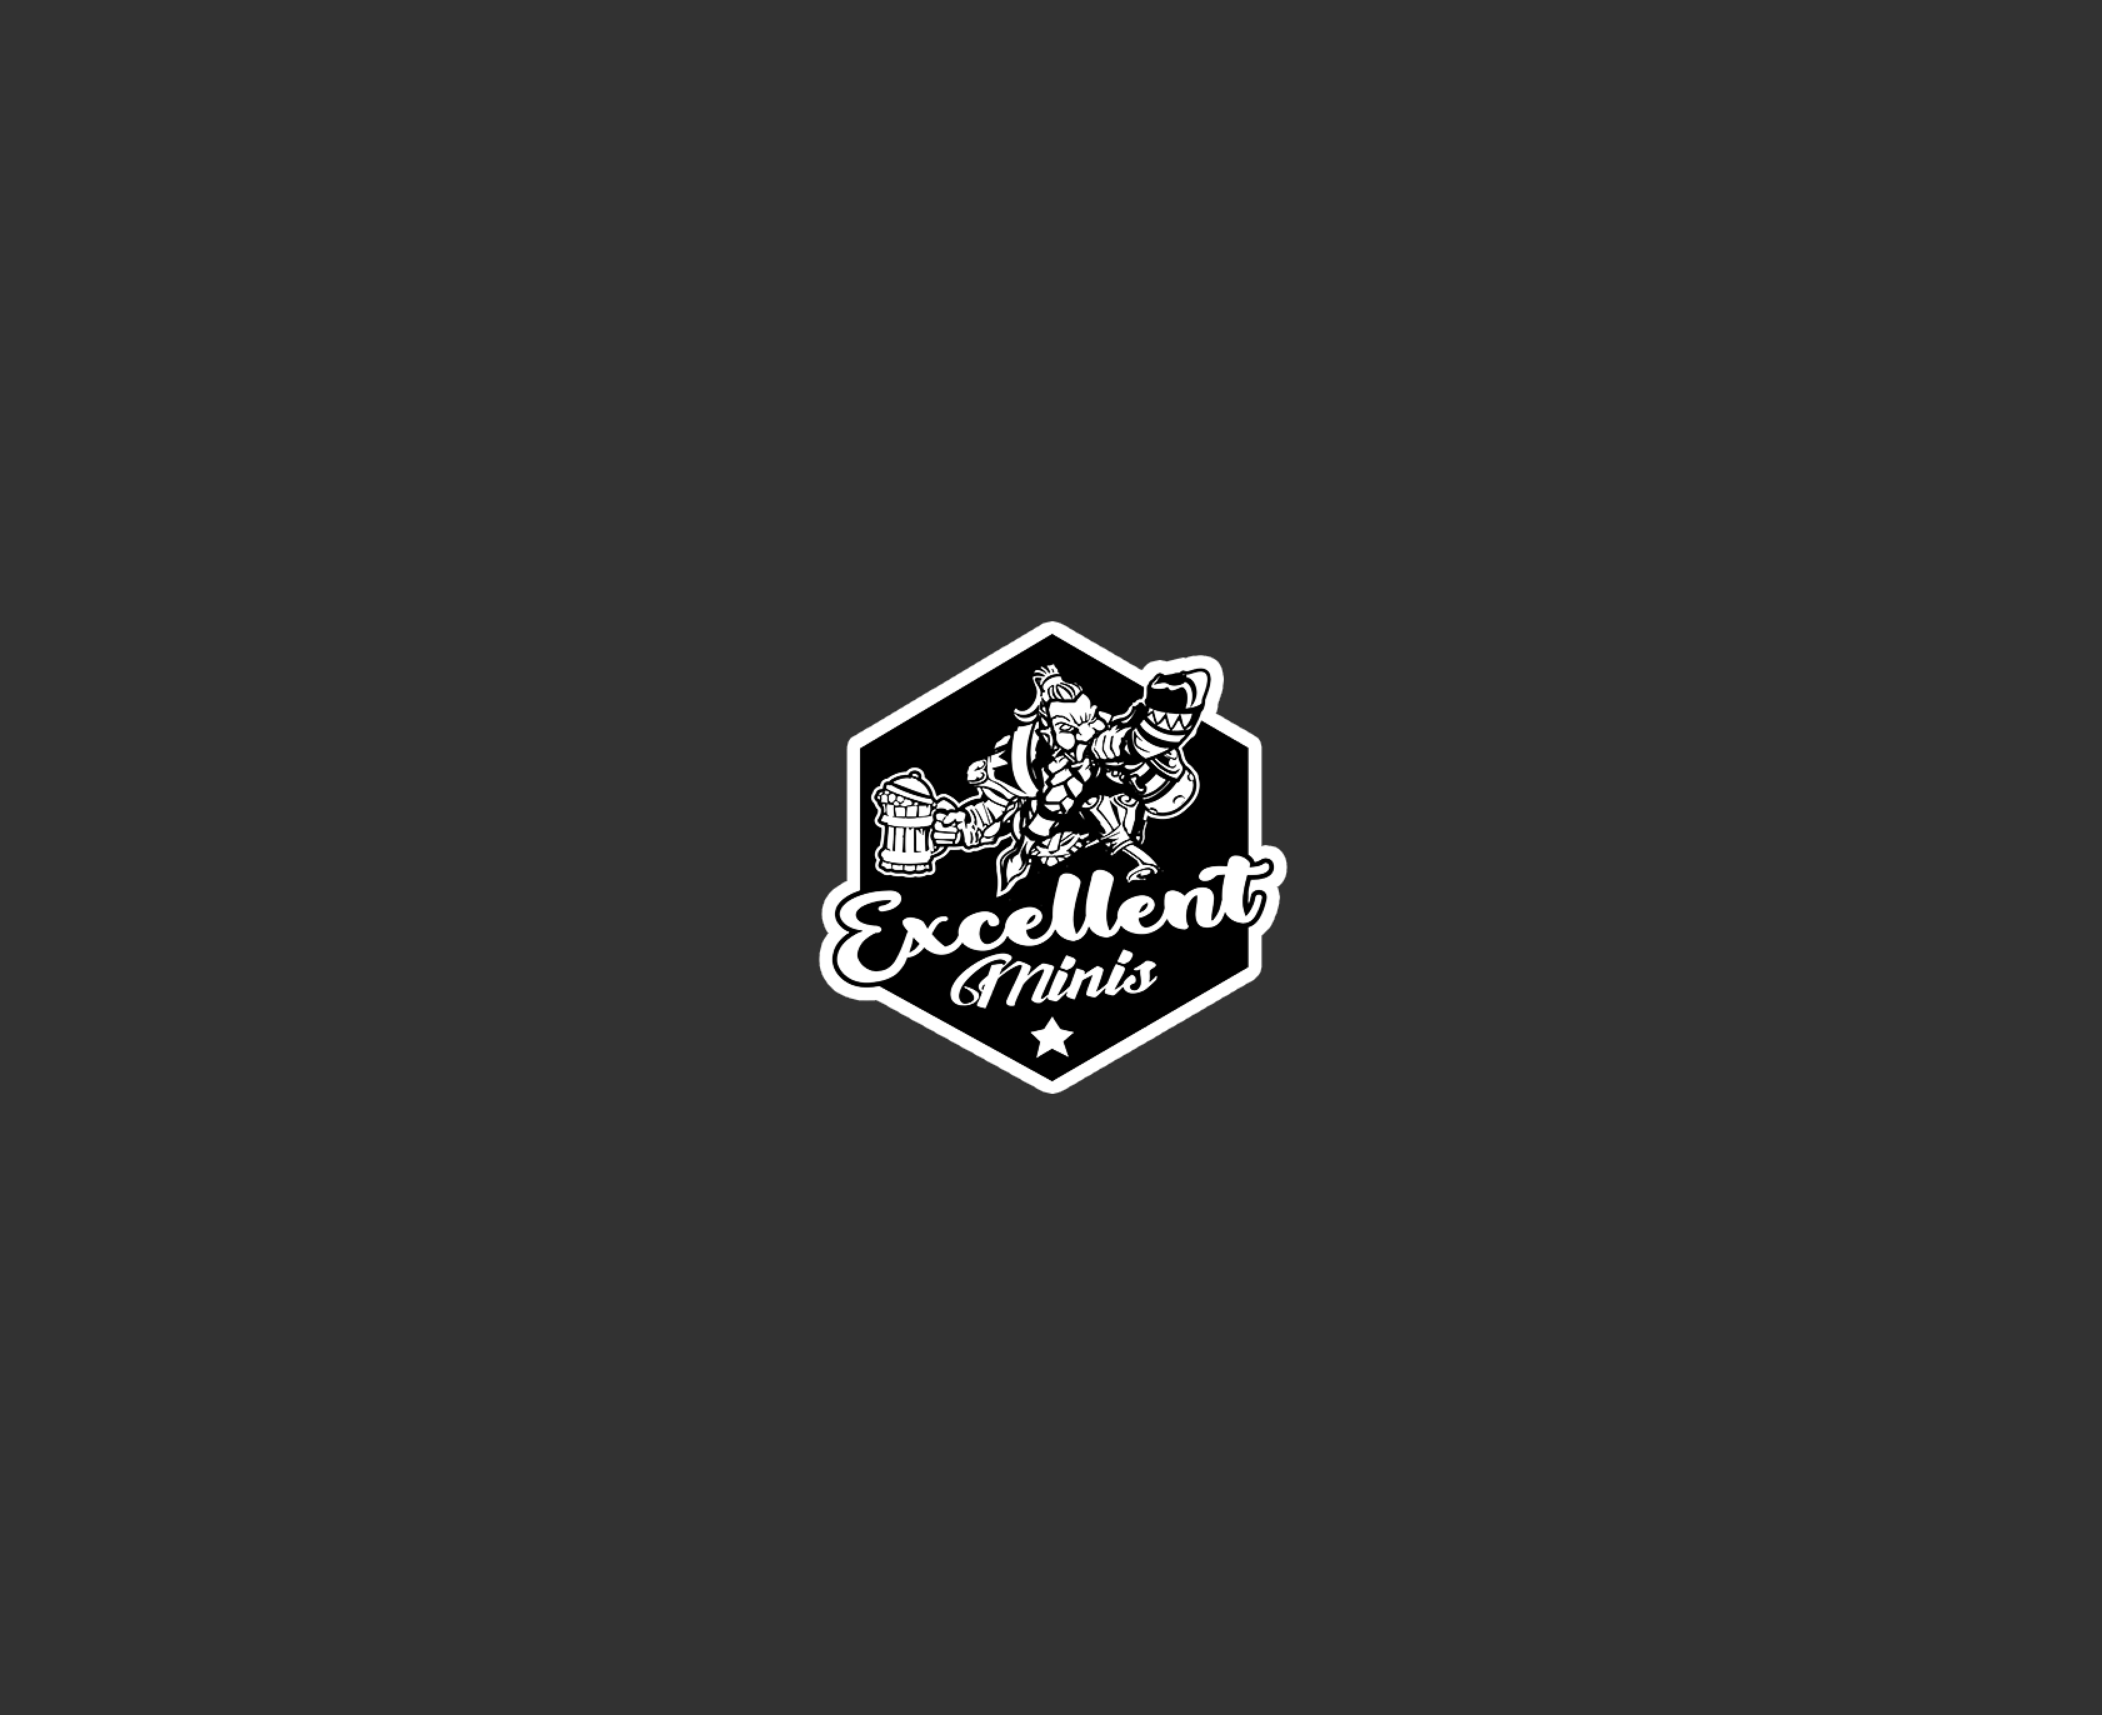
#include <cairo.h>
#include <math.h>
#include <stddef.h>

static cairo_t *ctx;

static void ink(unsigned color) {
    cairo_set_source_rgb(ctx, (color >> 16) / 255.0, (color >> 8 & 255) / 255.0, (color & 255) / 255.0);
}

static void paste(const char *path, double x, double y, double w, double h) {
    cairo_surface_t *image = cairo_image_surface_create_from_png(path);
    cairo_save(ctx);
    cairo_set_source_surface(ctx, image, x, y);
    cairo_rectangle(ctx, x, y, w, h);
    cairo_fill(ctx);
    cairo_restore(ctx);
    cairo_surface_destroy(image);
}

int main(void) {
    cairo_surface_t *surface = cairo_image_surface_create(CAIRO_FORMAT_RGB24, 2102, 1715);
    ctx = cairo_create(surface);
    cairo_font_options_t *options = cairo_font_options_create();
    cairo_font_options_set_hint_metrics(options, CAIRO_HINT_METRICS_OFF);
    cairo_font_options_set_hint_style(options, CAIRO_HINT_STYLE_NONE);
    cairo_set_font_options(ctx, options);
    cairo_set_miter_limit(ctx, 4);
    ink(0x323232);
    cairo_paint(ctx);
    paste("pic1.png", 818, 621, 470, 473);
    cairo_surface_write_to_png(surface, "screenshot.png");
    cairo_font_options_destroy(options);
    cairo_destroy(ctx);
    cairo_surface_destroy(surface);
    return 0;
}
